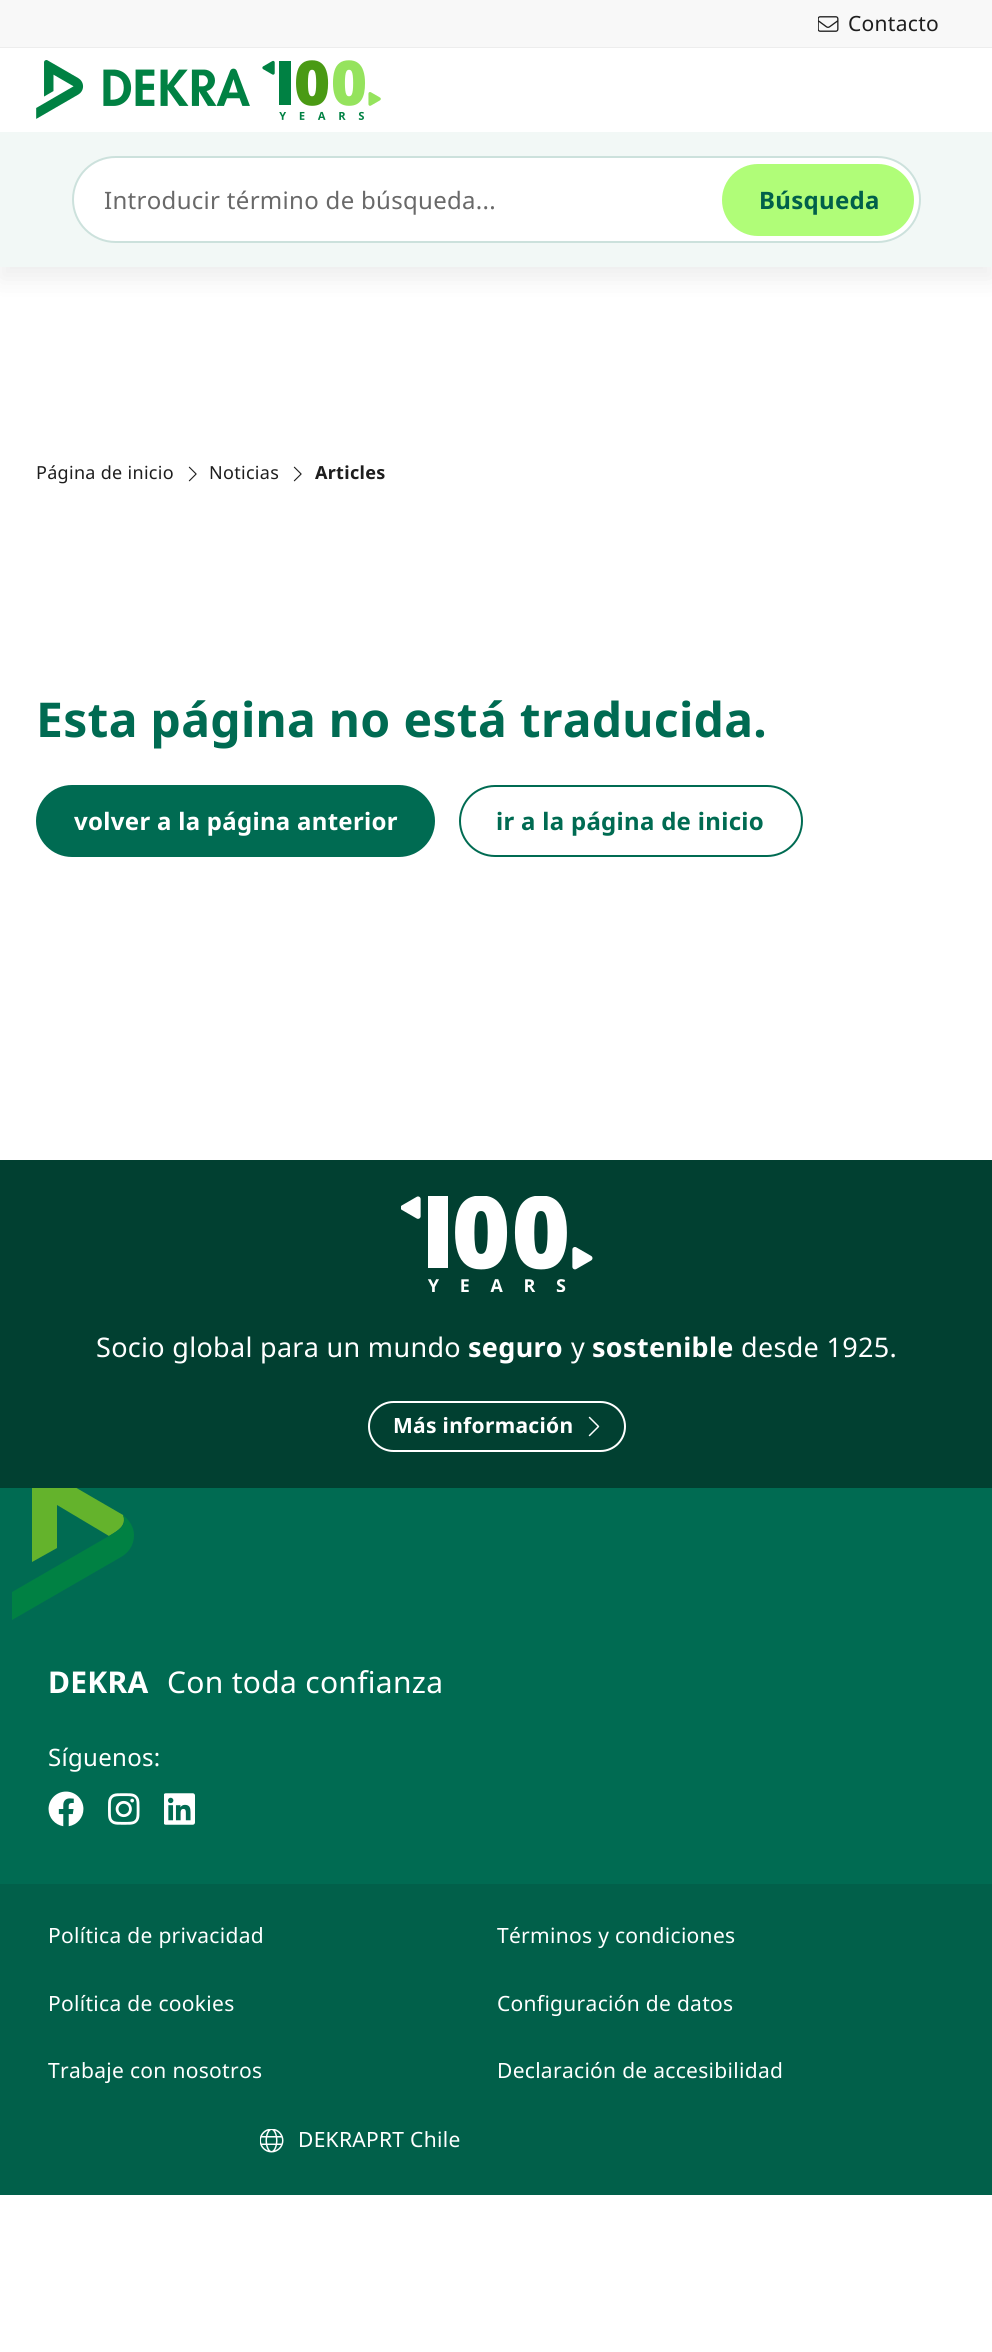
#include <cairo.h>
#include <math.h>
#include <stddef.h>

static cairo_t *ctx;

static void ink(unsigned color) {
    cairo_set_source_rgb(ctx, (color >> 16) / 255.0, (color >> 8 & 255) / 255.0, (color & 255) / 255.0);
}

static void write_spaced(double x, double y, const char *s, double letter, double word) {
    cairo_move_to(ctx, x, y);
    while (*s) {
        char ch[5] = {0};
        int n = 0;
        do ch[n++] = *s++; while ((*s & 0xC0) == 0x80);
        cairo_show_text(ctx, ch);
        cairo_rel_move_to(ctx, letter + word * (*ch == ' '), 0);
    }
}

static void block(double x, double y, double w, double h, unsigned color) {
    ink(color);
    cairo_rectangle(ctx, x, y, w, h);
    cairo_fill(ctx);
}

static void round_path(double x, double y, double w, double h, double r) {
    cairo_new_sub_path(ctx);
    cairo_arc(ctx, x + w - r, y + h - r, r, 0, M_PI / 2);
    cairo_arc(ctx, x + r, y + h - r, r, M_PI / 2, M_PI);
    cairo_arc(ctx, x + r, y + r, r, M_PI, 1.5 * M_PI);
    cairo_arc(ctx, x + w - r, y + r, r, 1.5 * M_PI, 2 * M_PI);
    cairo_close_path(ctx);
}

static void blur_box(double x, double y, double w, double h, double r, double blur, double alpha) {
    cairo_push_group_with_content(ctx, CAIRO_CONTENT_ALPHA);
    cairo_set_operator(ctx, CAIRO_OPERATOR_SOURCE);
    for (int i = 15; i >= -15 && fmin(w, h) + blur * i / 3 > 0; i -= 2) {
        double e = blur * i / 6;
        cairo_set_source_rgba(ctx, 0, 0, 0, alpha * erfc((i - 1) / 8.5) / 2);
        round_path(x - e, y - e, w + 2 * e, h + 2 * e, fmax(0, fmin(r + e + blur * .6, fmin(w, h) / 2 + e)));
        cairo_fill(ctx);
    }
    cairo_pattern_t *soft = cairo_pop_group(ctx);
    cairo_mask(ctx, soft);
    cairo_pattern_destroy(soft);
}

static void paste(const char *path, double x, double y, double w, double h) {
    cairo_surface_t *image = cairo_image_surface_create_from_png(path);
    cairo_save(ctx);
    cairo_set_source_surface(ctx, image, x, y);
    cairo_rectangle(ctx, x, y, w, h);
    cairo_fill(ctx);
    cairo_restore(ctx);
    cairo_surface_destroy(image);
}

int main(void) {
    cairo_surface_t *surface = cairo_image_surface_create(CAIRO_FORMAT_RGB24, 992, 2352);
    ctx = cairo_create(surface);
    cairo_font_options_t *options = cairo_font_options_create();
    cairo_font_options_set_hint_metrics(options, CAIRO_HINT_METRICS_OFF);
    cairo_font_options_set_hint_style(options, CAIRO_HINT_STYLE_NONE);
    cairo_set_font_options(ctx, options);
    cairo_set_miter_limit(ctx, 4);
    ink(0xffffff);
    cairo_paint(ctx);
    ink(0x1e1e1e);
    blur_box(0, 12, 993, 267, 0, 12, 0.08);
    block(0, 0, 992, 47, 0xf8f8f8);
    block(0, 47, 992, 1, 0xededed);
    paste("pic1.png", 818, 16, 21, 16);
    cairo_select_font_face(ctx, "Noto Sans", CAIRO_FONT_SLANT_NORMAL, CAIRO_FONT_WEIGHT_NORMAL);
    cairo_set_font_size(ctx, 21);
    ink(0x1e1e1e);
    write_spaced(848, 31, "Contacto", 0.3, 0);
    block(0, 48, 992, 84, 0xffffff);
    paste("pic2.png", 36, 60, 345, 60);
    block(0, 132, 992, 135, 0xf2f8f6);
    ink(0xffffff);
    round_path(73, 157, 847, 85, 42.5);
    cairo_fill_preserve(ctx);
    ink(0xcce1dc);
    cairo_stroke(ctx);
    cairo_set_font_size(ctx, 24);
    ink(0x696969);
    write_spaced(104, 209, "Introducir término de búsqueda...", 0.3, 0);
    ink(0xb0fd78);
    round_path(722, 164, 192, 72, 36);
    cairo_fill(ctx);
    cairo_select_font_face(ctx, "Noto Sans", CAIRO_FONT_SLANT_NORMAL, CAIRO_FONT_WEIGHT_BOLD);
    ink(0x01604a);
    write_spaced(759, 209, "Búsqueda", 0.3, 0);
    cairo_select_font_face(ctx, "Noto Sans", CAIRO_FONT_SLANT_NORMAL, CAIRO_FONT_WEIGHT_NORMAL);
    cairo_set_font_size(ctx, 18);
    ink(0x1e1e1e);
    write_spaced(36, 479, "Página de inicio", 0.3, 0);
    paste("pic3.png", 188, 466, 9, 16);
    write_spaced(209, 479, "Noticias", 0.3, 0);
    paste("pic3.png", 293, 466, 9, 16);
    cairo_select_font_face(ctx, "Noto Sans", CAIRO_FONT_SLANT_NORMAL, CAIRO_FONT_WEIGHT_BOLD);
    write_spaced(315, 479, "Articles", 0.3, 0);
    cairo_set_font_size(ctx, 48);
    ink(0x006b52);
    write_spaced(36, 737, "Esta página no está traducida.", 0.3, 0);
    round_path(36, 785, 399, 72, 36);
    cairo_fill(ctx);
    cairo_set_font_size(ctx, 24);
    ink(0xffffff);
    write_spaced(74, 830, "volver a la página anterior", 0.3, 0);
    round_path(460, 786, 342, 70, 35);
    ink(0x006b52);
    cairo_stroke(ctx);
    write_spaced(496, 830, "ir a la página de inicio", 0.3, 0);
    block(0, 1160, 992, 328, 0x014031);
    paste("pic4.png", 401, 1196, 192, 96);
    cairo_select_font_face(ctx, "Noto Sans", CAIRO_FONT_SLANT_NORMAL, CAIRO_FONT_WEIGHT_NORMAL);
    cairo_set_font_size(ctx, 27);
    ink(0xffffff);
    write_spaced(96, 1357, "Socio global para un mundo", 0.3, 0);
    cairo_select_font_face(ctx, "Noto Sans", CAIRO_FONT_SLANT_NORMAL, CAIRO_FONT_WEIGHT_BOLD);
    write_spaced(468, 1357, "seguro", 0.3, 0);
    cairo_select_font_face(ctx, "Noto Sans", CAIRO_FONT_SLANT_NORMAL, CAIRO_FONT_WEIGHT_NORMAL);
    write_spaced(571, 1357, "y", 0.3, 0);
    cairo_select_font_face(ctx, "Noto Sans", CAIRO_FONT_SLANT_NORMAL, CAIRO_FONT_WEIGHT_BOLD);
    write_spaced(592, 1357, "sostenible", 0.3, 0);
    cairo_select_font_face(ctx, "Noto Sans", CAIRO_FONT_SLANT_NORMAL, CAIRO_FONT_WEIGHT_NORMAL);
    write_spaced(741, 1357, "desde 1925.", 0.3, 0);
    round_path(369, 1402, 256, 49, 24.5);
    cairo_stroke(ctx);
    cairo_select_font_face(ctx, "Noto Sans", CAIRO_FONT_SLANT_NORMAL, CAIRO_FONT_WEIGHT_BOLD);
    cairo_set_font_size(ctx, 21);
    write_spaced(393, 1433, "Más información", 0.3, 0);
    paste("pic5.png", 588, 1416, 12, 21);
    block(0, 1488, 992, 396, 0x006b52);
    cairo_save(ctx);
    cairo_rectangle(ctx, 12, 1488, 132, 132);
    cairo_clip(ctx);
    ink(0x64b32c);
    cairo_new_path(ctx);
    cairo_move_to(ctx, 57, 1505);
    cairo_line_to(ctx, 109, 1536);
    cairo_curve_to(ctx, 117, 1531, 127, 1526, 123, 1515);
    cairo_line_to(ctx, 42, 1468);
    cairo_curve_to(ctx, 39, 1467, 37, 1467, 35, 1468);
    cairo_curve_to(ctx, 33, 1469, 32, 1471, 32, 1474);
    cairo_line_to(ctx, 32, 1562);
    cairo_line_to(ctx, 57, 1548);
    cairo_close_path(ctx);
    cairo_fill(ctx);
    cairo_restore(ctx);
    ink(0x008143);
    cairo_new_path(ctx);
    cairo_move_to(ctx, 124, 1516);
    cairo_line_to(ctx, 123, 1515);
    cairo_curve_to(ctx, 128, 1526, 117, 1531, 109, 1536);
    cairo_line_to(ctx, 12, 1592);
    cairo_line_to(ctx, 12, 1620);
    cairo_line_to(ctx, 121, 1557);
    cairo_curve_to(ctx, 128, 1553, 134, 1546, 134, 1535);
    cairo_curve_to(ctx, 134, 1527, 129, 1520, 124, 1516);
    cairo_close_path(ctx);
    cairo_fill(ctx);
    cairo_set_font_size(ctx, 30);
    ink(0xffffff);
    write_spaced(48, 1693, "DEKRA", 0.3, 0);
    cairo_select_font_face(ctx, "Noto Sans", CAIRO_FONT_SLANT_NORMAL, CAIRO_FONT_WEIGHT_NORMAL);
    write_spaced(167, 1693, "Con toda confianza", 0.3, 0);
    cairo_set_font_size(ctx, 24);
    write_spaced(48, 1766, "Síguenos:", 0.3, 0);
    paste("pic6.png", 48, 1791, 36, 36);
    paste("pic7.png", 108, 1793, 32, 32);
    paste("pic8.png", 164, 1793, 31, 32);
    block(0, 1884, 992, 311, 0x01604a);
    cairo_set_font_size(ctx, 21);
    ink(0xffffff);
    write_spaced(48, 1943, "Política de privacidad", 0.3, 0);
    write_spaced(497, 1943, "Términos y condiciones", 0.3, 0);
    write_spaced(48, 2011, "Política de cookies", 0.3, 0);
    write_spaced(497, 2011, "Configuración de datos", 0.3, 0);
    write_spaced(48, 2078, "Trabaje con nosotros", 0.3, 0);
    write_spaced(497, 2078, "Declaración de accesibilidad", 0.3, 0);
    paste("pic9.png", 260, 2129, 24, 24);
    write_spaced(298, 2147, "DEKRAPRT Chile", 0.3, 0);
    cairo_surface_write_to_png(surface, "screenshot.png");
    cairo_font_options_destroy(options);
    cairo_destroy(ctx);
    cairo_surface_destroy(surface);
    return 0;
}
